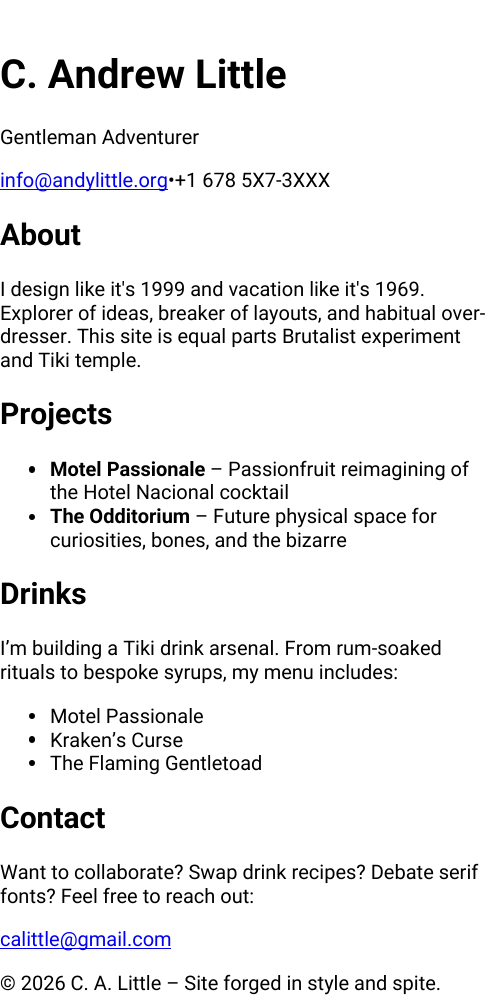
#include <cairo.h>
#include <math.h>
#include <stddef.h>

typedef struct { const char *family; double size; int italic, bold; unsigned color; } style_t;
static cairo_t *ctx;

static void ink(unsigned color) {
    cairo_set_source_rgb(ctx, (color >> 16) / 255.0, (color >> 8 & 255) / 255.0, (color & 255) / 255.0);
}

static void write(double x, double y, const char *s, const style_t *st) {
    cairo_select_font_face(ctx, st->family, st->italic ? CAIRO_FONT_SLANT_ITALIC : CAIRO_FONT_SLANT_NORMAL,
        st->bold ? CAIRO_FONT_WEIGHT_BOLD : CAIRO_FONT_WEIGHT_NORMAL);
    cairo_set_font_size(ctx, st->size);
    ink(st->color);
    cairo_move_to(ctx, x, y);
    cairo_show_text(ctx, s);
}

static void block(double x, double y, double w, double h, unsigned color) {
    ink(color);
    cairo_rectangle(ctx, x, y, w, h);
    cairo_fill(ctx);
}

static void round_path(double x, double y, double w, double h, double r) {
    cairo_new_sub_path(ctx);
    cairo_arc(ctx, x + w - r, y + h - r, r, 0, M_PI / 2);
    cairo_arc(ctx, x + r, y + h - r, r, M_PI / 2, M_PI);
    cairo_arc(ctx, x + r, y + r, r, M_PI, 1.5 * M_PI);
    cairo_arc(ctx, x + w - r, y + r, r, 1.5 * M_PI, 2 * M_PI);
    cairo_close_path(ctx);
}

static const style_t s1 = {"Roboto", 40, 0, 1, 0x000000};
static const style_t s2 = {"Roboto", 20, 0, 0, 0x000000};
static const style_t s3 = {"Roboto", 20, 0, 0, 0x0000ee};
static const style_t s4 = {"Roboto", 30, 0, 1, 0x000000};
static const style_t s5 = {"Roboto", 20, 0, 1, 0x000000};

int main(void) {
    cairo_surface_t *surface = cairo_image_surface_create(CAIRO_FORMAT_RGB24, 490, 1001);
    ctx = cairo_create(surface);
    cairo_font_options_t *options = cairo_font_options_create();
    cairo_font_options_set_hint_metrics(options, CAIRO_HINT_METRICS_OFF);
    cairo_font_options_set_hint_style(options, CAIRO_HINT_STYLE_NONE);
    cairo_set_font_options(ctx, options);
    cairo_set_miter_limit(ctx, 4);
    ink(0xffffff);
    cairo_paint(ctx);
    write(0, 88, "C. Andrew Little", &s1);
    write(0, 144, "Gentleman Adventurer", &s2);
    block(0, 189, 168, 1, 0x0000ee);
    write(0, 187, "info@andylittle.org", &s3);
    write(168, 187, "•+1 678 5X7-3XXX", &s2);
    write(0, 245, "About", &s4);
    write(0, 296, "I design like it's 1999 and vacation like it's 1969.", &s2);
    write(0, 320, "Explorer of ideas, breaker of layouts, and habitual over-", &s2);
    write(0, 343, "dresser. This site is equal parts Brutalist experiment", &s2);
    write(0, 367, "and Tiki temple.", &s2);
    write(0, 424, "Projects", &s4);
    round_path(29, 466, 6, 7, 3);
    cairo_fill(ctx);
    write(50, 476, "Motel Passionale", &s5);
    write(210, 476, "– Passionfruit reimagining of", &s2);
    write(50, 499, "the Hotel Nacional cocktail", &s2);
    cairo_new_path(ctx);
    cairo_arc(ctx, 32, 517, 3, 0, 2 * M_PI);
    cairo_fill(ctx);
    write(50, 523, "The Odditorium", &s5);
    write(195, 523, "– Future physical space for", &s2);
    write(50, 547, "curiosities, bones, and the bizarre", &s2);
    write(0, 604, "Drinks", &s4);
    write(0, 655, "I’m building a Tiki drink arsenal. From rum-soaked", &s2);
    write(0, 679, "rituals to bespoke syrups, my menu includes:", &s2);
    cairo_new_path(ctx);
    cairo_arc(ctx, 32, 716, 3, 0, 2 * M_PI);
    cairo_fill(ctx);
    write(50, 723, "Motel Passionale", &s2);
    round_path(29, 736, 6, 7, 3);
    cairo_fill(ctx);
    write(50, 747, "Kraken’s Curse", &s2);
    cairo_new_path(ctx);
    cairo_arc(ctx, 32, 763, 3, 0, 2 * M_PI);
    cairo_fill(ctx);
    write(50, 770, "The Flaming Gentletoad", &s2);
    write(0, 828, "Contact", &s4);
    write(0, 879, "Want to collaborate? Swap drink recipes? Debate serif", &s2);
    write(0, 903, "fonts? Feel free to reach out:", &s2);
    block(0, 948, 171, 1, 0x0000ee);
    write(0, 946, "calittle@gmail.com", &s3);
    write(0, 990, "© 2026 C. A. Little – Site forged in style and spite.", &s2);
    cairo_surface_write_to_png(surface, "screenshot.png");
    cairo_font_options_destroy(options);
    cairo_destroy(ctx);
    cairo_surface_destroy(surface);
    return 0;
}
